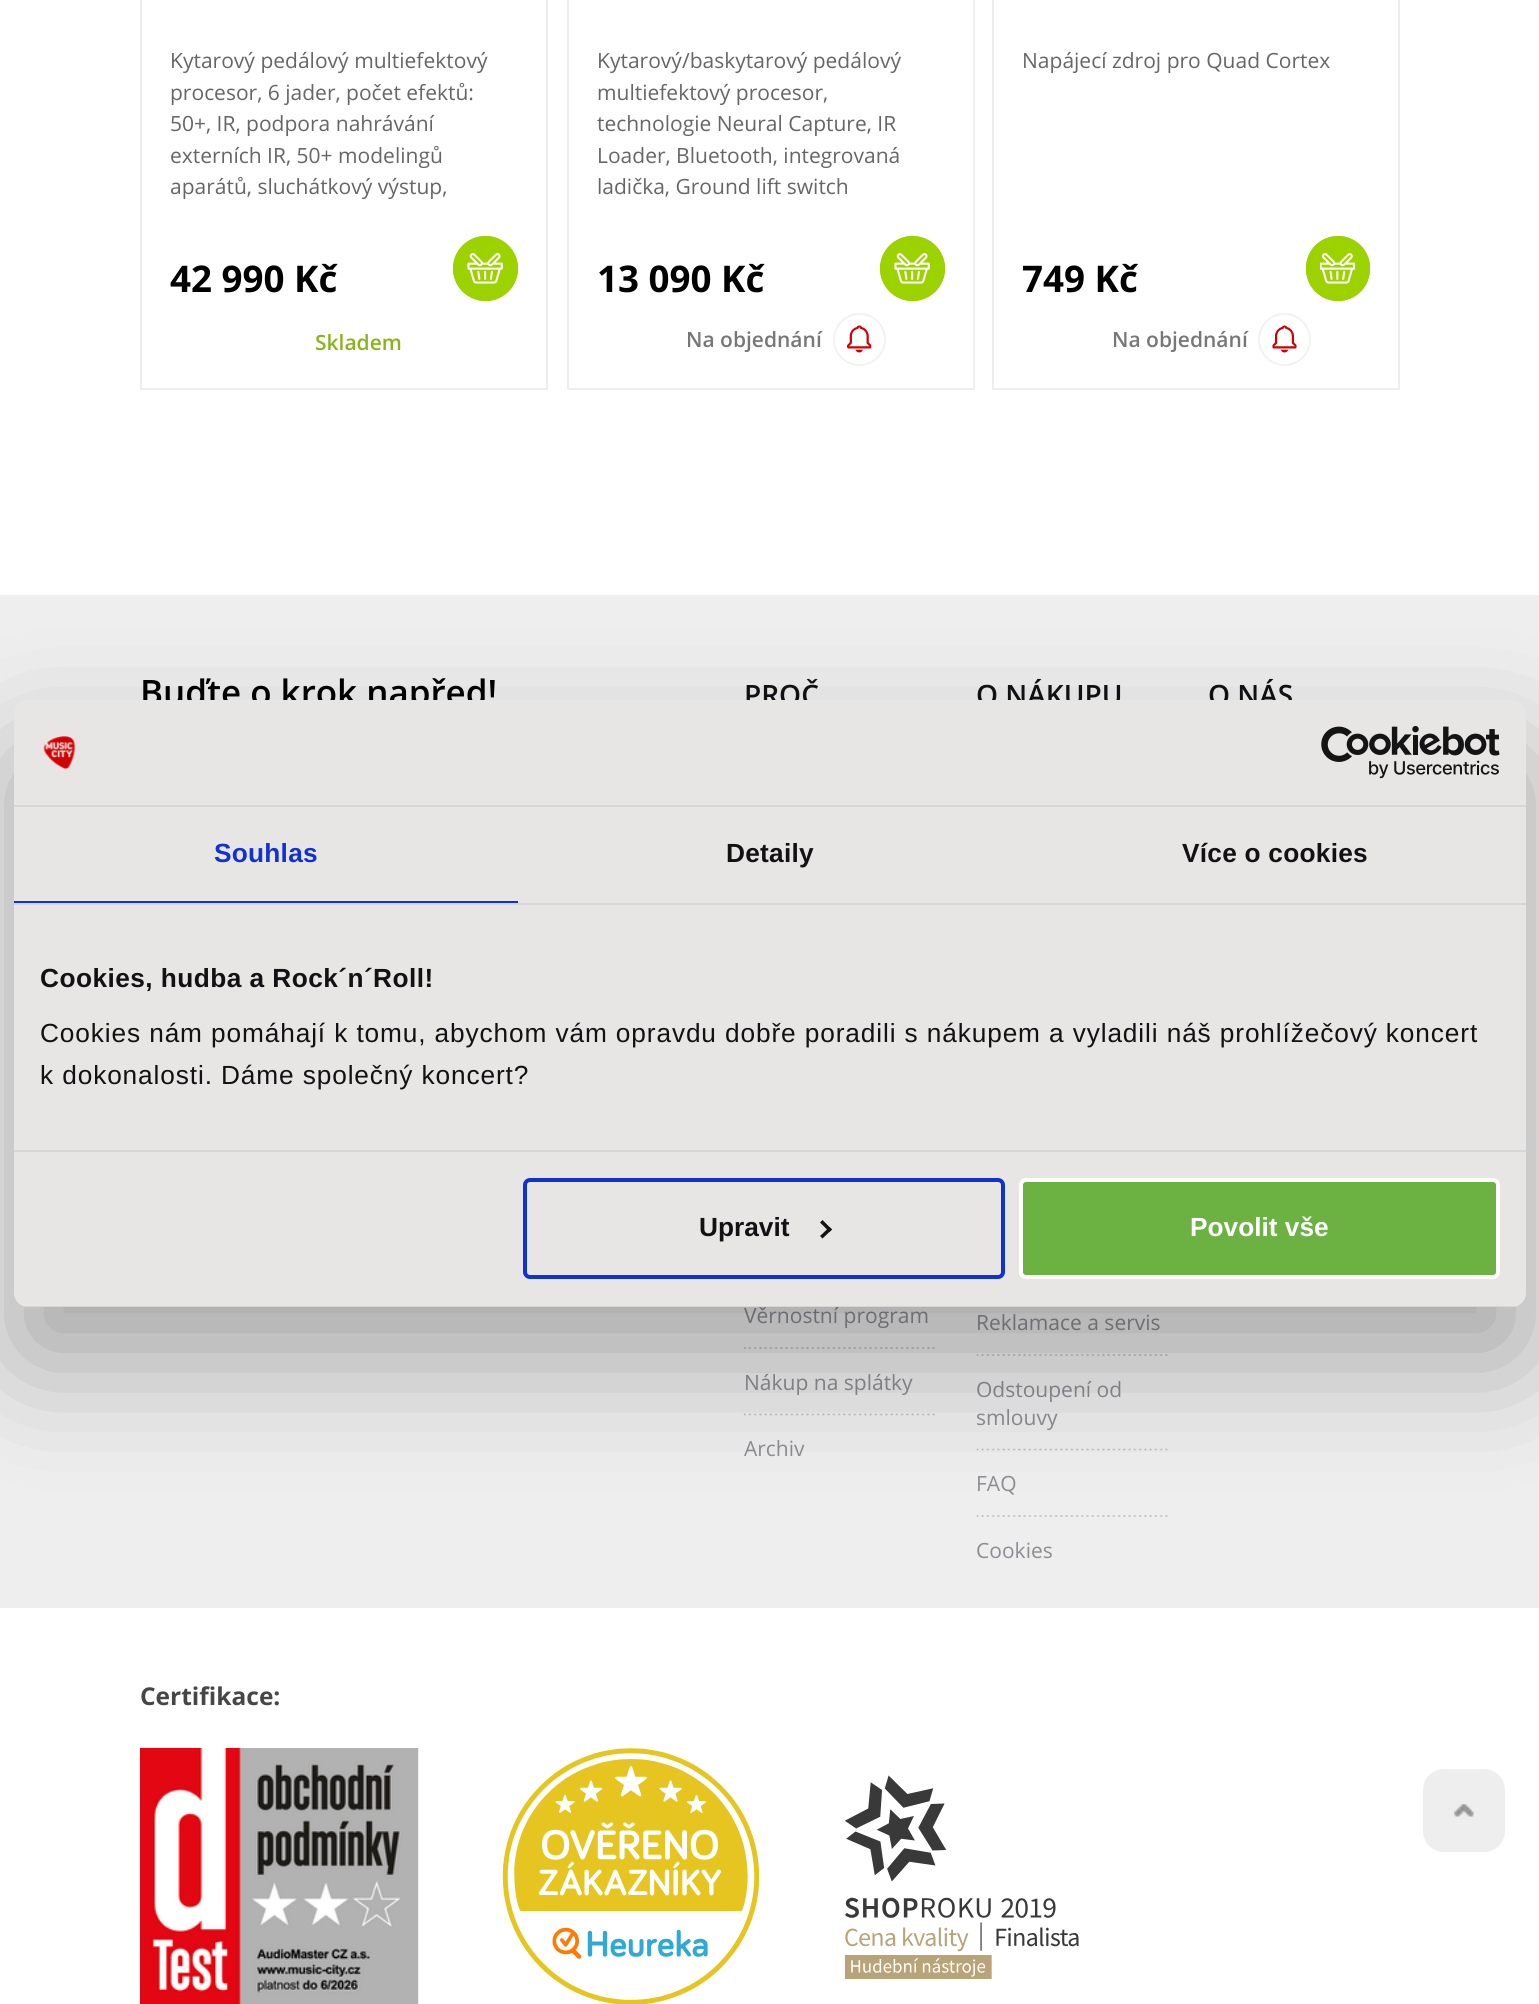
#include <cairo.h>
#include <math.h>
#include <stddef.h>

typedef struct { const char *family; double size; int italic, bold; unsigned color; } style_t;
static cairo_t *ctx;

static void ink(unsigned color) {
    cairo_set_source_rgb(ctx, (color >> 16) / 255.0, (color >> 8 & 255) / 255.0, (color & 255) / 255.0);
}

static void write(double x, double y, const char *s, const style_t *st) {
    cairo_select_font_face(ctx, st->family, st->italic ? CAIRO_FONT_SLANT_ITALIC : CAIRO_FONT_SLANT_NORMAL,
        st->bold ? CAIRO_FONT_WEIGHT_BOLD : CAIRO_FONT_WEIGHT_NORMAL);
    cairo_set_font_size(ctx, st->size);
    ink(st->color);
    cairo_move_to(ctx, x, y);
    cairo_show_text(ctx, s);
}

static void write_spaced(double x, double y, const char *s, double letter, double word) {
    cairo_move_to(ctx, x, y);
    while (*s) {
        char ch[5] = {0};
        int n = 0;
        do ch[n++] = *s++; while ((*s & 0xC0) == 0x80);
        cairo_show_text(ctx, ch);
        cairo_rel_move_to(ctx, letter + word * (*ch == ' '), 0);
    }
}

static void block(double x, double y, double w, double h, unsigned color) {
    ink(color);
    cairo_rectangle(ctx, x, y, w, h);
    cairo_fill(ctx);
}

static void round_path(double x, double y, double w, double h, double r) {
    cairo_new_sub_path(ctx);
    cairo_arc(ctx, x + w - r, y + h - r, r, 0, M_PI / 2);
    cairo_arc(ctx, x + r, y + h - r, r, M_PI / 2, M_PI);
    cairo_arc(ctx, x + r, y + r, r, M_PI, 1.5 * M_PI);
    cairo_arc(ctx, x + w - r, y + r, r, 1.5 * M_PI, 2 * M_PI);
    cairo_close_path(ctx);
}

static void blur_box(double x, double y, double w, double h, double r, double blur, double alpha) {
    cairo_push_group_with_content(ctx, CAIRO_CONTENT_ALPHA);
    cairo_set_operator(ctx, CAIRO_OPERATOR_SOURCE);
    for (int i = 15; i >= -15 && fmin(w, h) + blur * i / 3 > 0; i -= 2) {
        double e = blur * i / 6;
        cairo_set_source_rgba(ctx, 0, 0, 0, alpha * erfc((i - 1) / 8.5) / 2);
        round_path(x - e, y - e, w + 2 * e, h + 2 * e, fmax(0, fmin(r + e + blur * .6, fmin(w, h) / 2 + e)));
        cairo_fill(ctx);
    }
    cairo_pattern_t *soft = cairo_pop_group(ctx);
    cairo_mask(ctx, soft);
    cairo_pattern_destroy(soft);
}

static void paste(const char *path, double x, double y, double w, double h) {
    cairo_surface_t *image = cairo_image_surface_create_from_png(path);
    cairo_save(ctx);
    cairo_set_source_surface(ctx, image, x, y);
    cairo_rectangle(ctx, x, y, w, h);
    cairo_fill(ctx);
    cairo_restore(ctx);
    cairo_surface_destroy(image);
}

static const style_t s1 = {"Open Sans", 21, 0, 0, 0x666666};
static const style_t s2 = {"Open Sans", 36.75, 0, 1, 0x000000};
static const style_t s3 = {"Open Sans SemiBold", 21, 0, 0, 0x87b518};
static const style_t s4 = {"Open Sans SemiBold", 21, 0, 0, 0x777777};
static const style_t s5 = {"Open Sans SemiBold", 35, 0, 0, 0x000000};
static const style_t s6 = {"Open Sans SemiBold", 28, 0, 0, 0x121214};
static const style_t s7 = {"Open Sans", 21, 0, 0, 0x8d8e93};
static const style_t s8 = {"Open Sans", 24.5, 0, 1, 0x464646};
static const style_t s9 = {"Liberation Sans", 26.25, 0, 1, 0x121214};
static const style_t s10 = {"Liberation Sans", 26.25, 0, 1, 0xffffff};

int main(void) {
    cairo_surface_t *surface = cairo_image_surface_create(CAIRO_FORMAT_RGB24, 1539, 2004);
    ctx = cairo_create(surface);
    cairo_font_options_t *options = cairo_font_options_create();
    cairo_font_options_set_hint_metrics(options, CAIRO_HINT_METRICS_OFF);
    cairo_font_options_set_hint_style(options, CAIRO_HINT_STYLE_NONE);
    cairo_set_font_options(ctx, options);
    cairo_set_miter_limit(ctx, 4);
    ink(0xffffff);
    cairo_paint(ctx);
    cairo_rectangle(ctx, 141, -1, 406, 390);
    ink(0xeeeeee);
    cairo_stroke(ctx);
    write(170, 68, "Kytarový pedálový multiefektový", &s1);
    write(170, 100, "procesor, 6 jader, počet efektů:", &s1);
    write(170, 131, "50+, IR, podpora nahrávání", &s1);
    write(170, 163, "externích IR, 50+ modelingů", &s1);
    write(170, 194, "aparátů, sluchátkový výstup,", &s1);
    write(170, 292, "42 990 Kč", &s2);
    ink(0x9bd200);
    cairo_new_path(ctx);
    cairo_arc(ctx, 485.5, 268.5, 32.5, 0, 2 * M_PI);
    cairo_fill(ctx);
    paste("pic1.png", 467, 253, 36, 31);
    cairo_arc(ctx, 485.5, 268.5, 31.5, 0, 2 * M_PI);
    cairo_stroke(ctx);
    write(315, 350, "Skladem", &s3);
    cairo_rectangle(ctx, 568, -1, 406, 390);
    ink(0xeeeeee);
    cairo_stroke(ctx);
    write(597, 68, "Kytarový/baskytarový pedálový", &s1);
    write(597, 100, "multiefektový procesor,", &s1);
    write(597, 131, "technologie Neural Capture, IR", &s1);
    write(597, 163, "Loader, Bluetooth, integrovaná", &s1);
    write(597, 194, "ladička, Ground lift switch", &s1);
    write(597, 292, "13 090 Kč", &s2);
    ink(0x9bd200);
    cairo_new_path(ctx);
    cairo_arc(ctx, 912.5, 268.5, 32.5, 0, 2 * M_PI);
    cairo_fill(ctx);
    paste("pic1.png", 894, 253, 36, 31);
    cairo_arc(ctx, 912.5, 268.5, 31.5, 0, 2 * M_PI);
    cairo_stroke(ctx);
    write(686, 347, "Na objednání", &s4);
    cairo_new_path(ctx);
    cairo_arc(ctx, 859.5, 339.5, 25.5, 0, 2 * M_PI);
    ink(0xf2f2f2);
    cairo_stroke(ctx);
    paste("pic2.png", 847, 325, 25, 28);
    cairo_rectangle(ctx, 993, -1, 406, 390);
    ink(0xeeeeee);
    cairo_stroke(ctx);
    write(1022, 68, "Napájecí zdroj pro Quad Cortex", &s1);
    write(1022, 292, "749 Kč", &s2);
    ink(0x9bd200);
    round_path(1306, 236, 64, 65, 32);
    cairo_fill(ctx);
    paste("pic3.png", 1320, 253, 36, 31);
    round_path(1307, 237, 62, 63, 31);
    cairo_stroke(ctx);
    write(1112, 347, "Na objednání", &s4);
    cairo_new_path(ctx);
    cairo_arc(ctx, 1284.5, 339.5, 25.5, 0, 2 * M_PI);
    ink(0xf2f2f2);
    cairo_stroke(ctx);
    paste("pic4.png", 1272, 325, 25, 28);
    ink(0xeeeeee);
    round_path(1423, 1769, 82, 83, 21);
    cairo_fill(ctx);
    paste("pic5.png", 1454, 1804, 20, 13);
    block(0, 595, 1539, 1013, 0xeeeeee);
    write(140, 705, "Buďte o krok napřed!", &s5);
    write(744, 705, "PROČ", &s6);
    write(744, 1323, "Věrnostní program", &s7);
    paste("pic6.png", 743, 1347, 192, 2);
    write(744, 1390, "Nákup na splátky", &s7);
    paste("pic7.png", 743, 1413, 192, 3);
    write(744, 1456, "Archiv", &s7);
    write(976, 705, "O NÁKUPU", &s6);
    write(976, 1330, "Reklamace a servis", &s7);
    paste("pic8.png", 976, 1354, 192, 2);
    write(976, 1397, "Odstoupení od", &s7);
    write(976, 1425, "smlouvy", &s7);
    paste("pic9.png", 976, 1448, 192, 3);
    write(976, 1491, "FAQ", &s7);
    paste("pic10.png", 976, 1515, 192, 2);
    write(976, 1558, "Cookies", &s7);
    write(1208, 705, "O NÁS", &s6);
    write(140, 1705, "Certifikace:", &s8);
    paste("pic11.png", 140, 1748, 279, 256);
    paste("pic12.png", 502, 1748, 258, 256);
    paste("pic13.png", 844, 1775, 235, 204);
    ink(0x000000);
    blur_box(14, 756, 1512, 607, 14, 59.5, 0.3);
    ink(0xe8e5e5);
    round_path(14, 700, 1512, 607, 14);
    cairo_fill(ctx);
    block(14, 805, 1512, 2, 0xd6d6d6);
    paste("pic14.png", 43, 736, 33, 34);
    paste("pic15.png", 1321, 726, 179, 53);
    block(14, 903, 1512, 2, 0xd6d6d6);
    block(14, 901, 504, 2, 0x1032cf);
    cairo_select_font_face(ctx, "Liberation Sans", CAIRO_FONT_SLANT_NORMAL, CAIRO_FONT_WEIGHT_BOLD);
    cairo_set_font_size(ctx, 26.25);
    write_spaced(214, 862, "Souhlas", 0.25, 0);
    ink(0x121214);
    write_spaced(726, 862, "Detaily", 0.25, 0);
    write_spaced(1182, 862, "Více o cookies", 0.25, 0);
    block(14, 1150, 1512, 2, 0xd6d6d6);
    ink(0x121214);
    write_spaced(40, 987, "Cookies, hudba a Rock´n´Roll!", 0.45, 0);
    cairo_select_font_face(ctx, "Liberation Sans", CAIRO_FONT_SLANT_NORMAL, CAIRO_FONT_WEIGHT_NORMAL);
    write_spaced(40, 1042, "Cookies nám pomáhají k tomu, abychom vám opravdu dobře poradili s nákupem a vyladili náš prohlížečový koncert", 0.88, 0);
    write_spaced(40, 1084, "k dokonalosti. Dáme společný koncert?", 0.88, 0);
    cairo_save(ctx);
    round_path(14, 700, 1512, 607, 14);
    cairo_clip(ctx);
    block(23, 1306, 1494, 1, 0xd6d6d6);
    cairo_restore(ctx);
    round_path(525, 1180, 478, 97, 5);
    ink(0x1032cf);
    cairo_set_line_width(ctx, 4);
    cairo_stroke(ctx);
    write(699, 1236, "Upravit", &s9);
    ink(0x141414);
    cairo_new_path(ctx);
    cairo_move_to(ctx, 822.5, 1220);
    cairo_line_to(ctx, 832, 1229.5);
    cairo_line_to(ctx, 829.5, 1232);
    cairo_line_to(ctx, 820, 1222.5);
    cairo_close_path(ctx);
    cairo_fill(ctx);
    cairo_new_path(ctx);
    cairo_move_to(ctx, 829.5, 1227);
    cairo_line_to(ctx, 832, 1229.5);
    cairo_line_to(ctx, 822.5, 1238.5);
    cairo_line_to(ctx, 820, 1236);
    cairo_close_path(ctx);
    cairo_fill(ctx);
    ink(0x6cb243);
    round_path(1021, 1180, 477, 97, 5);
    cairo_fill_preserve(ctx);
    ink(0xffffff);
    cairo_stroke(ctx);
    write(1190, 1236, "Povolit vše", &s10);
    cairo_surface_write_to_png(surface, "screenshot.png");
    cairo_font_options_destroy(options);
    cairo_destroy(ctx);
    cairo_surface_destroy(surface);
    return 0;
}
